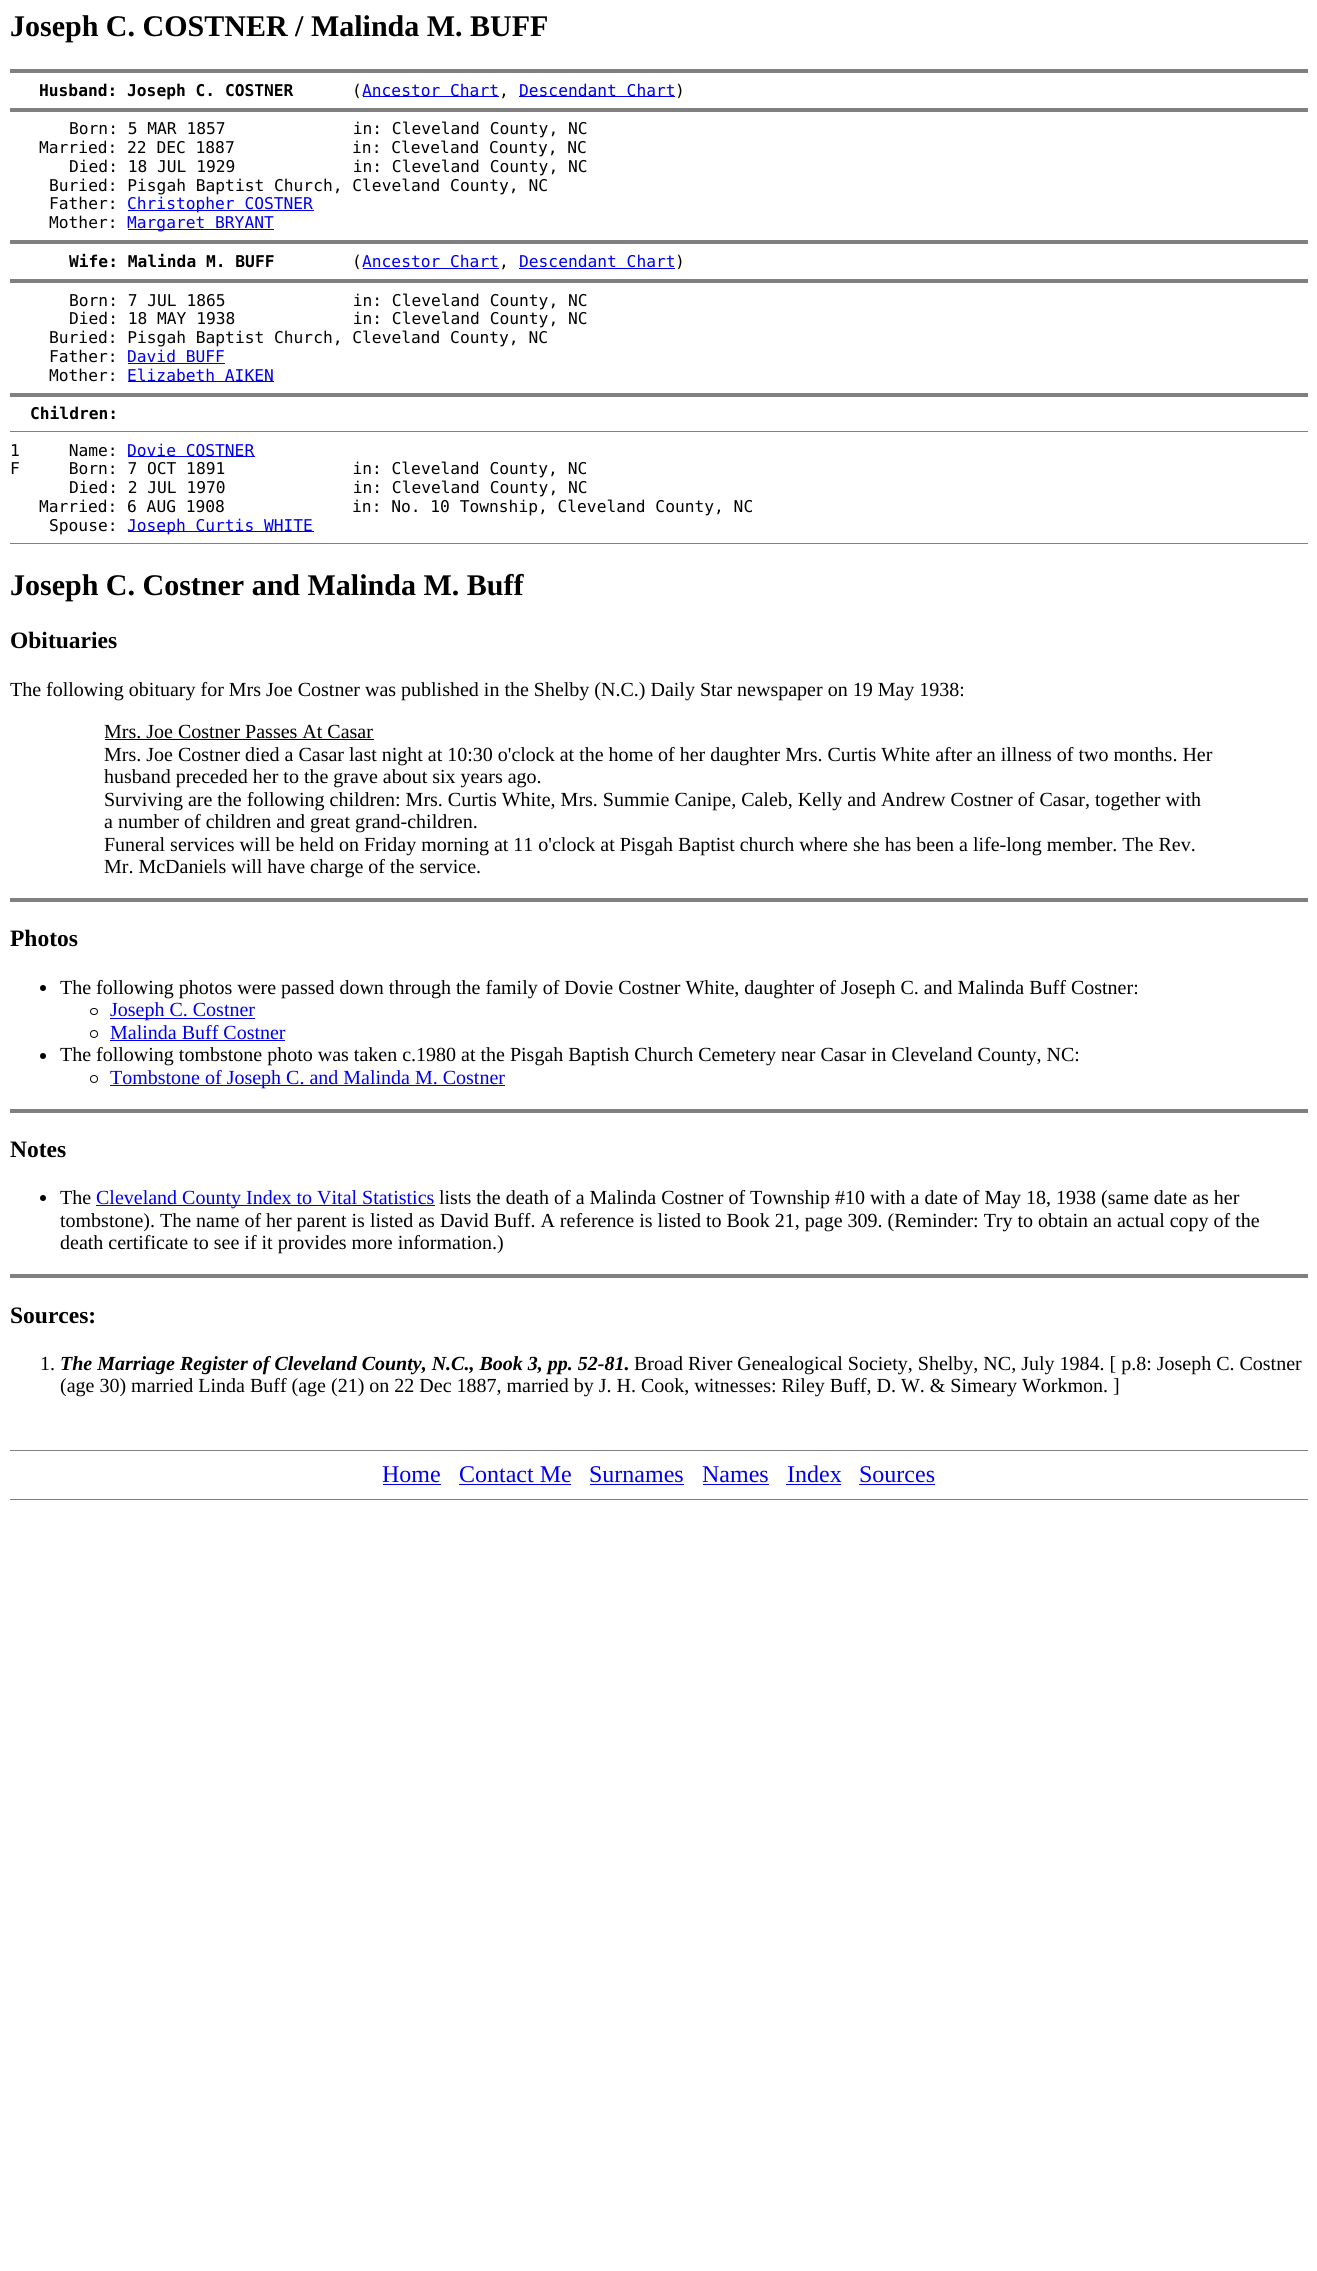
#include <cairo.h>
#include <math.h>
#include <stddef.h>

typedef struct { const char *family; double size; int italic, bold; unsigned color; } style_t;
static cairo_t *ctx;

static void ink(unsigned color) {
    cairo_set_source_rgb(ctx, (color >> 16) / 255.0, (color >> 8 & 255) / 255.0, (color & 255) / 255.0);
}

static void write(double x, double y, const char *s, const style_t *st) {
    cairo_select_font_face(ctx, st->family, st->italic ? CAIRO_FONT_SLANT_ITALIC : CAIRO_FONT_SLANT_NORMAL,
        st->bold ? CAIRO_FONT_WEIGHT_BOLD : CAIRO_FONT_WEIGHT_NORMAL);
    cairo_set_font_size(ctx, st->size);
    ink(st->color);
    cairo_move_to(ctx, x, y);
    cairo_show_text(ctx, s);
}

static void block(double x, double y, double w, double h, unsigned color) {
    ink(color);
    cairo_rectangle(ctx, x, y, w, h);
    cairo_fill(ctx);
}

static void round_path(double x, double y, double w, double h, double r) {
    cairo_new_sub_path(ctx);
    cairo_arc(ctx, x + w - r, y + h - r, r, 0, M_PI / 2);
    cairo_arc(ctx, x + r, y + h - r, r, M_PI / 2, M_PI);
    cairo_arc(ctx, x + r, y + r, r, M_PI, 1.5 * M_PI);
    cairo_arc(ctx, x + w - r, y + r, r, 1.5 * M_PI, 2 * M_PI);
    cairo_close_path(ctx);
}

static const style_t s1 = {"Liberation Serif", 30, 0, 1, 0x000000};
static const style_t s2 = {"DejaVu Sans Mono", 16.25, 0, 1, 0x000000};
static const style_t s3 = {"DejaVu Sans Mono", 16.25, 0, 0, 0x000000};
static const style_t s4 = {"DejaVu Sans Mono", 16.25, 0, 0, 0x0000ee};
static const style_t s5 = {"Liberation Serif", 23.5, 0, 1, 0x000000};
static const style_t s6 = {"Liberation Serif", 20, 0, 0, 0x000000};
static const style_t s7 = {"Liberation Serif", 20, 0, 0, 0x0000ee};
static const style_t s8 = {"Liberation Serif", 20, 1, 1, 0x000000};
static const style_t s9 = {"Liberation Serif", 24, 0, 0, 0x0000ee};

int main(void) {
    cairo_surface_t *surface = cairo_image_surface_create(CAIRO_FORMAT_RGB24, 1317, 2271);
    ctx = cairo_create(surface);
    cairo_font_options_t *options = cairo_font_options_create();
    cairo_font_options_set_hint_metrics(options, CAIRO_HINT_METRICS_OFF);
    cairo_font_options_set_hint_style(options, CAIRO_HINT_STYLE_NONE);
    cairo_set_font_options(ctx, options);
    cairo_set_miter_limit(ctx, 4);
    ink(0xffffff);
    cairo_paint(ctx);
    write(10, 36, "Joseph C. COSTNER / Malinda M. BUFF", &s1);
    block(10, 69, 1298, 4, 0x808080);
    write(39, 96, "Husband: Joseph C. COSTNER", &s2);
    write(352, 96, "(", &s3);
    block(363, 96, 136, 1, 0x0000ee);
    write(362, 96, "Ancestor Chart", &s4);
    write(499, 96, ",", &s3);
    block(519, 96, 156, 1, 0x0000ee);
    write(519, 96, "Descendant Chart", &s4);
    write(675, 96, ")", &s3);
    block(10, 108, 1298, 4, 0x808080);
    write(69, 134, "Born: 5 MAR 1857             in: Cleveland County, NC", &s3);
    write(39, 153, "Married: 22 DEC 1887            in: Cleveland County, NC", &s3);
    write(69, 172, "Died: 18 JUL 1929            in: Cleveland County, NC", &s3);
    write(49, 191, "Buried: Pisgah Baptist Church, Cleveland County, NC", &s3);
    write(49, 209, "Father:", &s3);
    block(128, 210, 186, 1, 0x0000ee);
    write(127, 209, "Christopher COSTNER", &s4);
    write(49, 228, "Mother:", &s3);
    block(128, 229, 146, 1, 0x0000ee);
    write(127, 228, "Margaret BRYANT", &s4);
    block(10, 240, 1298, 4, 0x808080);
    write(69, 267, "Wife: Malinda M. BUFF", &s2);
    write(352, 267, "(", &s3);
    write(362, 267, "Ancestor Chart", &s4);
    block(363, 268, 136, 1, 0x0000ee);
    write(499, 267, ",", &s3);
    write(519, 267, "Descendant Chart", &s4);
    block(519, 268, 156, 1, 0x0000ee);
    write(675, 267, ")", &s3);
    block(10, 279, 1298, 4, 0x808080);
    write(69, 306, "Born: 7 JUL 1865             in: Cleveland County, NC", &s3);
    write(69, 324, "Died: 18 MAY 1938            in: Cleveland County, NC", &s3);
    write(49, 343, "Buried: Pisgah Baptist Church, Cleveland County, NC", &s3);
    write(49, 362, "Father:", &s3);
    write(127, 362, "David BUFF", &s4);
    block(128, 363, 97, 1, 0x0000ee);
    write(49, 381, "Mother:", &s3);
    block(128, 381, 146, 1, 0x0000ee);
    write(127, 381, "Elizabeth AIKEN", &s4);
    block(10, 393, 1298, 4, 0x808080);
    write(30, 419, "Children:", &s2);
    block(10, 431, 1298, 1, 0x808080);
    write(10, 456, "1     Name:", &s3);
    block(128, 456, 127, 1, 0x0000ee);
    write(127, 456, "Dovie COSTNER", &s4);
    write(10, 474, "F     Born: 7 OCT 1891             in: Cleveland County, NC", &s3);
    write(69, 493, "Died: 2 JUL 1970             in: Cleveland County, NC", &s3);
    write(39, 512, "Married: 6 AUG 1908             in: No. 10 Township, Cleveland County, NC", &s3);
    write(49, 531, "Spouse:", &s3);
    block(128, 531, 186, 1, 0x0000ee);
    write(127, 531, "Joseph Curtis WHITE", &s4);
    block(10, 543, 1298, 1, 0x808080);
    write(10, 595, "Joseph C. Costner and Malinda M. Buff", &s1);
    write(10, 648, "Obituaries", &s5);
    write(10, 696, "The following obituary for Mrs Joe Costner was published in the Shelby (N.C.) Daily Star newspaper on 19 May 1938:", &s6);
    write(104, 738, "Mrs. Joe Costner Passes At Casar", &s6);
    block(105, 739, 269, 1, 0x000000);
    write(104, 761, "Mrs. Joe Costner died a Casar last night at 10:30 o'clock at the home of her daughter Mrs. Curtis White after an illness of two months. Her", &s6);
    write(104, 783, "husband preceded her to the grave about six years ago.", &s6);
    write(104, 806, "Surviving are the following children: Mrs. Curtis White, Mrs. Summie Canipe, Caleb, Kelly and Andrew Costner of Casar, together with", &s6);
    write(104, 828, "a number of children and great grand-children.", &s6);
    write(104, 851, "Funeral services will be held on Friday morning at 11 o'clock at Pisgah Baptist church where she has been a life-long member. The Rev.", &s6);
    write(104, 873, "Mr. McDaniels will have charge of the service.", &s6);
    block(10, 898, 1298, 4, 0x808080);
    write(10, 946, "Photos", &s5);
    cairo_new_path(ctx);
    cairo_arc(ctx, 43, 988, 3, 0, 2 * M_PI);
    cairo_fill(ctx);
    write(60, 994, "The following photos were passed down through the family of Dovie Costner White, daughter of Joseph C. and Malinda Buff Costner:", &s6);
    round_path(90.5, 1008.5, 7, 6, 3);
    cairo_set_line_width(ctx, 1);
    cairo_stroke(ctx);
    block(110, 1018, 145, 1, 0x0000ee);
    write(110, 1016, "Joseph C. Costner", &s7);
    cairo_new_path(ctx);
    cairo_arc(ctx, 94, 1034, 3.5, 0, 2 * M_PI);
    ink(0x000000);
    cairo_stroke(ctx);
    write(110, 1039, "Malinda Buff Costner", &s7);
    block(110, 1040, 175, 1, 0x0000ee);
    ink(0x000000);
    cairo_new_path(ctx);
    cairo_arc(ctx, 43, 1056, 3, 0, 2 * M_PI);
    cairo_fill(ctx);
    write(60, 1061, "The following tombstone photo was taken c.1980 at the Pisgah Baptish Church Cemetery near Casar in Cleveland County, NC:", &s6);
    cairo_new_path(ctx);
    cairo_arc(ctx, 94, 1079, 3.5, 0, 2 * M_PI);
    cairo_stroke(ctx);
    block(110, 1085, 395, 1, 0x0000ee);
    write(110, 1084, "Tombstone of Joseph C. and Malinda M. Costner", &s7);
    block(10, 1109, 1298, 4, 0x808080);
    write(10, 1157, "Notes", &s5);
    cairo_new_path(ctx);
    cairo_arc(ctx, 43, 1198, 3, 0, 2 * M_PI);
    cairo_fill(ctx);
    write(60, 1204, "The", &s6);
    block(96, 1205, 339, 1, 0x0000ee);
    write(96, 1204, "Cleveland County Index to Vital Statistics", &s7);
    write(439, 1204, "lists the death of a Malinda Costner of Township #10 with a date of May 18, 1938 (same date as her", &s6);
    write(60, 1227, "tombstone). The name of her parent is listed as David Buff. A reference is listed to Book 21, page 309. (Reminder: Try to obtain an actual copy of the", &s6);
    write(60, 1249, "death certificate to see if it provides more information.)", &s6);
    block(10, 1274, 1298, 4, 0x808080);
    write(10, 1323, "Sources:", &s5);
    write(40, 1370, "1.", &s6);
    write(60, 1370, "The Marriage Register of Cleveland County, N.C., Book 3, pp. 52-81.", &s8);
    write(634, 1370, "Broad River Genealogical Society, Shelby, NC, July 1984. [ p.8: Joseph C. Costner", &s6);
    write(60, 1392, "(age 30) married Linda Buff (age (21) on 22 Dec 1887, married by J. H. Cook, witnesses: Riley Buff, D. W. & Simeary Workmon. ]", &s6);
    block(10, 1450, 1298, 1, 0x808080);
    write(382, 1482, "Home", &s9);
    block(383, 1484, 58, 1, 0x0000ee);
    write(459, 1482, "Contact Me", &s9);
    block(459, 1484, 112, 1, 0x0000ee);
    write(589, 1482, "Surnames", &s9);
    block(590, 1484, 94, 1, 0x0000ee);
    write(702, 1482, "Names", &s9);
    block(703, 1484, 66, 1, 0x0000ee);
    write(787, 1482, "Index", &s9);
    block(786, 1484, 55, 1, 0x0000ee);
    write(859, 1482, "Sources", &s9);
    block(859, 1484, 76, 1, 0x0000ee);
    block(10, 1499, 1298, 1, 0x808080);
    cairo_surface_write_to_png(surface, "screenshot.png");
    cairo_font_options_destroy(options);
    cairo_destroy(ctx);
    cairo_surface_destroy(surface);
    return 0;
}
